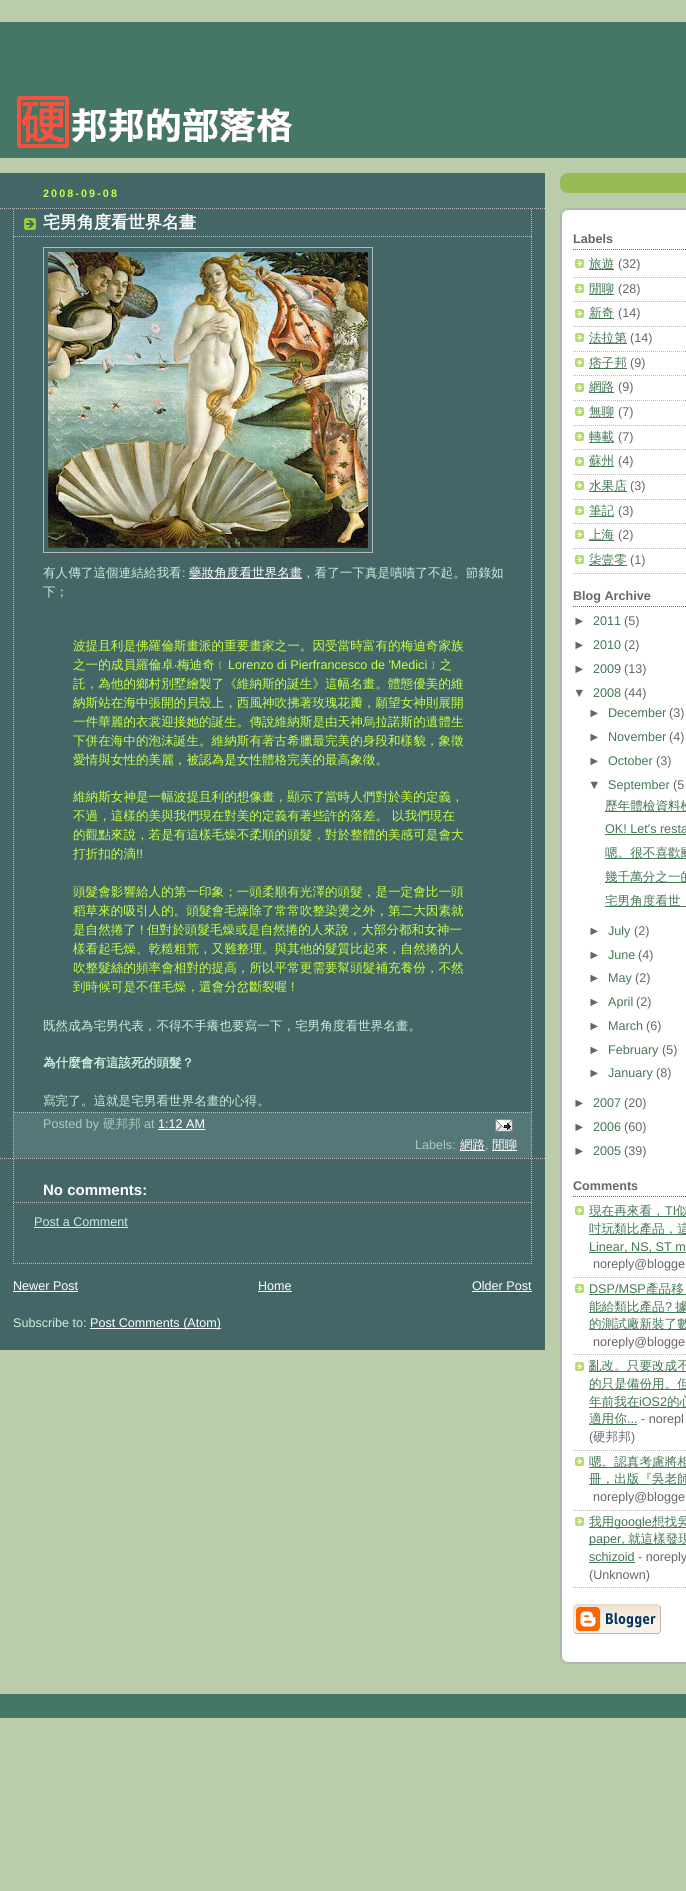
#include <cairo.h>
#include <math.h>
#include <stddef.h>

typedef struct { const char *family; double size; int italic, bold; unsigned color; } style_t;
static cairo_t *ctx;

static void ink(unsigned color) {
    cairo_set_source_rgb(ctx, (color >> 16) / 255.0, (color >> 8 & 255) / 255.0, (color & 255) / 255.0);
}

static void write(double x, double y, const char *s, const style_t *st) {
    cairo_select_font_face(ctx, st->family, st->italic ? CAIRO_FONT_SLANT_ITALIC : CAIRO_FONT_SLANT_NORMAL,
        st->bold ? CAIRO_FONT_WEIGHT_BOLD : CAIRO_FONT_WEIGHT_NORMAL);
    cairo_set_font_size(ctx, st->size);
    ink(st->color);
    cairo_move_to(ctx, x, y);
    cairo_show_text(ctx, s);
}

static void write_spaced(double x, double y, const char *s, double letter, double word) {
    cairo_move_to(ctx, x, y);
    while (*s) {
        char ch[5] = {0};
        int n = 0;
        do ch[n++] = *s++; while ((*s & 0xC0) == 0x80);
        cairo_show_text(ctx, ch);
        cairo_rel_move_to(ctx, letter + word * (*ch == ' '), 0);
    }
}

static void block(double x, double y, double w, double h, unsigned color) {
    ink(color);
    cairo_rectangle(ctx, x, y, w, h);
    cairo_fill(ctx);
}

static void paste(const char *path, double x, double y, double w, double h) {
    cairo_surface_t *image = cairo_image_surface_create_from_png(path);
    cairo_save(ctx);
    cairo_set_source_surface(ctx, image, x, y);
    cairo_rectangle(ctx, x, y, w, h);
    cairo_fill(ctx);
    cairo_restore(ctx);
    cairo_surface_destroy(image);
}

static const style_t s1 = {"WenQuanYi Zen Hei", 17, 0, 1, 0xffffff};
static const style_t s2 = {"WenQuanYi Zen Hei Medium", 12.6, 0, 0, 0xcceedd};
static const style_t s3 = {"Liberation Sans", 12.6, 0, 0, 0xcceedd};
static const style_t s4 = {"WenQuanYi Zen Hei Medium", 12.6, 0, 0, 0xffffff};
static const style_t s5 = {"WenQuanYi Zen Hei Medium", 12.6, 0, 0, 0xccff44};
static const style_t s6 = {"Noto Sans", 12.6, 0, 0, 0xccff44};
static const style_t s7 = {"Liberation Sans", 12.6, 0, 0, 0xccff44};
static const style_t s8 = {"WenQuanYi Zen Hei", 12.6, 0, 1, 0xcceedd};
static const style_t s9 = {"Liberation Sans", 12.6, 0, 0, 0xaaccbb};
static const style_t s10 = {"WenQuanYi Zen Hei Medium", 12.6, 0, 0, 0xaaccbb};
static const style_t s11 = {"Liberation Sans", 12.6, 0, 0, 0xffffff};
static const style_t s12 = {"Liberation Sans", 15, 0, 1, 0xffffff};
static const style_t s13 = {"Liberation Sans", 12.6, 0, 1, 0x666666};
static const style_t s14 = {"WenQuanYi Zen Hei Medium", 12.6, 0, 0, 0x447755};
static const style_t s15 = {"Liberation Sans", 12.6, 0, 0, 0x666666};
static const style_t s16 = {"Liberation Sans", 12.6, 0, 0, 0x447755};
static const style_t s17 = {"WenQuanYi Zen Hei Medium", 12.6, 0, 0, 0x666666};

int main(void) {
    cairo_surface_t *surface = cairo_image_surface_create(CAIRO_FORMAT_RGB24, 686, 1891);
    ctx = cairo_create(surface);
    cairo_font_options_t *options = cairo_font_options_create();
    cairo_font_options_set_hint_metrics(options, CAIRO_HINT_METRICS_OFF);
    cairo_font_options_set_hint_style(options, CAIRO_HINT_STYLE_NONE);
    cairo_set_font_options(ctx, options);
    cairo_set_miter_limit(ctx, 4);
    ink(0xbbccaa);
    cairo_paint(ctx);
    block(0, 22, 686, 136, 0x447766);
    paste("pic1.png", 17, 96, 275, 52);
    block(0, 173, 545, 1177, 0x446666);
    cairo_select_font_face(ctx, "Liberation Sans", CAIRO_FONT_SLANT_NORMAL, CAIRO_FONT_WEIGHT_BOLD);
    cairo_set_font_size(ctx, 10.75);
    ink(0xccff44);
    write_spaced(43, 197, "2008-09-08", 2.1, 0);
    cairo_new_path(ctx);
    cairo_move_to(ctx, 0, 208.5);
    cairo_line_to(ctx, 545, 208.5);
    ink(0xbbbbbb);
    cairo_set_line_width(ctx, 1);
    cairo_set_dash(ctx, (double[]){1, 1}, 2, 0);
    cairo_stroke(ctx);
    cairo_new_path(ctx);
    cairo_move_to(ctx, 0, 1158.5);
    cairo_line_to(ctx, 545, 1158.5);
    cairo_stroke(ctx);
    paste("pic2.png", 24, 218, 12, 12);
    cairo_new_path(ctx);
    cairo_move_to(ctx, 531.5, 209);
    cairo_line_to(ctx, 531.5, 237);
    cairo_stroke(ctx);
    cairo_new_path(ctx);
    cairo_move_to(ctx, 13, 236.5);
    cairo_line_to(ctx, 532, 236.5);
    cairo_stroke(ctx);
    cairo_new_path(ctx);
    cairo_move_to(ctx, 13.5, 209);
    cairo_line_to(ctx, 13.5, 237);
    cairo_stroke(ctx);
    write(43, 228, "宅男角度看世界名畫", &s1);
    cairo_new_path(ctx);
    cairo_move_to(ctx, 531.5, 237);
    cairo_line_to(ctx, 531.5, 1112);
    ink(0xbbbbbb);
    cairo_stroke(ctx);
    cairo_new_path(ctx);
    cairo_move_to(ctx, 13.5, 237);
    cairo_line_to(ctx, 13.5, 1112);
    cairo_stroke(ctx);
    cairo_rectangle(ctx, 43.5, 247.5, 329, 305);
    cairo_set_dash(ctx, NULL, 0, 0);
    cairo_stroke(ctx);
    paste("pic3.png", 48, 252, 320, 296);
    write(43, 577, "有人傳了這個連結給我看", &s2);
    write(182, 577, ":", &s3);
    block(189, 578, 113, 1, 0xffffff);
    write(189, 577, "藥妝角度看世界名畫", &s4);
    write(302, 577, "，看了一下真是嘖嘖了不起。節錄如", &s2);
    write(43, 596, "下；", &s2);
    write(73, 650, "波提且利是佛羅倫斯畫派的重要畫家之一。因受當時富有的梅迪奇家族", &s5);
    write(73, 669, "之一的成員羅倫卓", &s5);
    write(174, 669, "‧", &s6);
    write(177, 669, "梅迪奇﹝", &s5);
    write(228, 669, "Lorenzo di Pierfrancesco de 'Medici", &s7);
    write(427, 669, "﹞之", &s5);
    write(73, 688, "託，為他的鄉村別墅繪製了《維納斯的誕生》這幅名畫。體態優美的維", &s5);
    write(73, 707, "納斯站在海中張開的貝殼上，西風神吹拂著玫瑰花瓣，願望女神則展開", &s5);
    write(73, 726, "一件華麗的衣裳迎接她的誕生。傳說維納斯是由天神烏拉諾斯的遺體生", &s5);
    write(73, 745, "下併在海中的泡沫誕生。維納斯有著古希臘最完美的身段和樣貌，象徵", &s5);
    write(73, 764, "愛情與女性的美麗，被認為是女性體格完美的最高象徵。", &s5);
    write(73, 801, "維納斯女神是一幅波提且利的想像畫，顯示了當時人們對於美的定義，", &s5);
    write(73, 820, "不過，這樣的美與我們現在對美的定義有著些許的落差。 以我們現在", &s5);
    write(73, 839, "的觀點來說，若是有這樣毛燥不柔順的頭髮，對於整體的美感可是會大", &s5);
    write(73, 858, "打折扣的滴", &s5);
    write(136, 858, "!!", &s7);
    write(73, 896, "頭髮會影響給人的第一印象；一頭柔順有光澤的頭髮，是一定會比一頭", &s5);
    write(73, 915, "稻草來的吸引人的。頭髮會毛燥除了常常吹整染燙之外，第二大因素就", &s5);
    write(73, 934, "是自然捲了", &s5);
    write(140, 934, "!", &s7);
    write(147, 934, "但對於頭髮毛燥或是自然捲的人來說，大部分都和女神一", &s5);
    write(73, 953, "樣看起毛燥、乾糙粗荒，又難整理。與其他的髮質比起來，自然捲的人", &s5);
    write(73, 972, "吹整髮絲的頻率會相對的提高，所以平常更需要幫頭髮補充養份，不然", &s5);
    write(73, 991, "到時候可是不僅毛燥，還會分岔斷裂喔", &s5);
    write(291, 991, "!", &s7);
    write(43, 1030, "既然成為宅男代表，不得不手癢也要寫一下，宅男角度看世界名畫。", &s2);
    write(43, 1067, "為什麼會有這該死的頭髮？", &s8);
    write(43, 1105, "寫完了。這就是宅男看世界名畫的心得。", &s2);
    block(13, 1112, 519, 46, 0x557777);
    cairo_new_path(ctx);
    cairo_move_to(ctx, 13, 1112.5);
    cairo_line_to(ctx, 532, 1112.5);
    ink(0xbbbbbb);
    cairo_set_dash(ctx, (double[]){1, 1}, 2, 0);
    cairo_stroke(ctx);
    cairo_new_path(ctx);
    cairo_move_to(ctx, 531.5, 1112);
    cairo_line_to(ctx, 531.5, 1158);
    cairo_stroke(ctx);
    cairo_new_path(ctx);
    cairo_move_to(ctx, 13.5, 1112);
    cairo_line_to(ctx, 13.5, 1158);
    cairo_stroke(ctx);
    write(43, 1128, "Posted by", &s9);
    write(103, 1128, "硬邦邦", &s10);
    write(144, 1128, "at", &s9);
    write(158, 1128, "1:12 AM", &s11);
    cairo_new_path(ctx);
    cairo_move_to(ctx, 158.5, 1129.5);
    cairo_line_to(ctx, 205.5, 1129.5);
    cairo_stroke(ctx);
    block(158, 1129, 47, 1, 0xffffff);
    paste("pic4.png", 495, 1119, 18, 13);
    write(415, 1149, "Labels:", &s9);
    block(460, 1150, 25, 1, 0xffffff);
    write(460, 1149, "網路", &s4);
    write(485, 1149, ",", &s9);
    block(492, 1150, 25, 1, 0xffffff);
    write(492, 1149, "閒聊", &s4);
    cairo_new_path(ctx);
    cairo_move_to(ctx, 531.5, 1159);
    cairo_line_to(ctx, 531.5, 1264);
    ink(0xbbbbbb);
    cairo_stroke(ctx);
    cairo_new_path(ctx);
    cairo_move_to(ctx, 13, 1263.5);
    cairo_line_to(ctx, 532, 1263.5);
    cairo_stroke(ctx);
    cairo_new_path(ctx);
    cairo_move_to(ctx, 13.5, 1159);
    cairo_line_to(ctx, 13.5, 1264);
    cairo_stroke(ctx);
    cairo_new_path(ctx);
    cairo_move_to(ctx, 14, 1202.5);
    cairo_line_to(ctx, 531, 1202.5);
    cairo_stroke(ctx);
    write(43, 1195, "No comments:", &s12);
    write(34, 1226, "Post a Comment", &s3);
    block(34, 1227, 94, 1, 0xcceedd);
    write(13, 1290, "Newer Post", &s11);
    block(13, 1291, 65, 1, 0xffffff);
    write(258, 1290, "Home", &s11);
    block(258, 1291, 34, 1, 0xffffff);
    write(472, 1290, "Older Post", &s11);
    block(472, 1291, 60, 1, 0xffffff);
    write(13, 1327, "Subscribe to:", &s3);
    block(90, 1328, 131, 1, 0xffffff);
    write(90, 1327, "Post Comments (Atom)", &s11);
    block(560, 173, 126, 20, 0x99bb55);
    paste("pic5.png", 560, 185, 8, 8);
    paste("pic6.png", 560, 173, 8, 8);
    block(562, 210, 124, 1452, 0xffffff);
    paste("pic7.png", 560, 208, 126, 30);
    paste("pic8.png", 560, 1634, 126, 30);
    block(560, 238, 2, 1396, 0xaabbaa);
    cairo_new_path(ctx);
    cairo_move_to(ctx, 573, 249.5);
    cairo_line_to(ctx, 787, 249.5);
    ink(0x666666);
    cairo_stroke(ctx);
    write(573, 243, "Labels", &s13);
    paste("pic9.png", 575, 259, 9, 9);
    cairo_new_path(ctx);
    cairo_move_to(ctx, 573, 277.5);
    cairo_line_to(ctx, 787, 277.5);
    ink(0xbbbbbb);
    cairo_stroke(ctx);
    block(589, 269, 25, 1, 0x447755);
    write(589, 268, "旅遊", &s14);
    write(618, 268, "(32)", &s15);
    paste("pic9.png", 575, 284, 9, 9);
    cairo_new_path(ctx);
    cairo_move_to(ctx, 573, 301.5);
    cairo_line_to(ctx, 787, 301.5);
    ink(0xbbbbbb);
    cairo_stroke(ctx);
    block(589, 294, 25, 1, 0x447755);
    write(589, 293, "閒聊", &s14);
    write(618, 293, "(28)", &s15);
    paste("pic9.png", 575, 309, 9, 9);
    cairo_new_path(ctx);
    cairo_move_to(ctx, 573, 326.5);
    cairo_line_to(ctx, 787, 326.5);
    ink(0xbbbbbb);
    cairo_stroke(ctx);
    block(589, 318, 25, 1, 0x447755);
    write(589, 317, "新奇", &s14);
    write(618, 317, "(14)", &s15);
    paste("pic9.png", 575, 333, 9, 9);
    cairo_new_path(ctx);
    cairo_move_to(ctx, 573, 351.5);
    cairo_line_to(ctx, 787, 351.5);
    ink(0xbbbbbb);
    cairo_stroke(ctx);
    block(589, 343, 38, 1, 0x447755);
    write(589, 342, "法拉第", &s14);
    write(630, 342, "(14)", &s15);
    paste("pic9.png", 575, 358, 9, 9);
    cairo_new_path(ctx);
    cairo_move_to(ctx, 573, 375.5);
    cairo_line_to(ctx, 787, 375.5);
    ink(0xbbbbbb);
    cairo_stroke(ctx);
    block(589, 368, 38, 1, 0x447755);
    write(589, 367, "痞子邦", &s14);
    write(630, 367, "(9)", &s15);
    paste("pic9.png", 575, 383, 9, 9);
    cairo_new_path(ctx);
    cairo_move_to(ctx, 573, 400.5);
    cairo_line_to(ctx, 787, 400.5);
    ink(0xbbbbbb);
    cairo_stroke(ctx);
    block(589, 392, 25, 1, 0x447755);
    write(589, 391, "網路", &s14);
    write(618, 391, "(9)", &s15);
    paste("pic9.png", 575, 407, 9, 9);
    cairo_new_path(ctx);
    cairo_move_to(ctx, 573, 425.5);
    cairo_line_to(ctx, 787, 425.5);
    ink(0xbbbbbb);
    cairo_stroke(ctx);
    block(589, 417, 25, 1, 0x447755);
    write(589, 416, "無聊", &s14);
    write(618, 416, "(7)", &s15);
    paste("pic9.png", 575, 432, 9, 9);
    cairo_new_path(ctx);
    cairo_move_to(ctx, 573, 449.5);
    cairo_line_to(ctx, 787, 449.5);
    ink(0xbbbbbb);
    cairo_stroke(ctx);
    block(589, 442, 25, 1, 0x447755);
    write(589, 441, "轉載", &s14);
    write(618, 441, "(7)", &s15);
    paste("pic9.png", 575, 457, 9, 9);
    cairo_new_path(ctx);
    cairo_move_to(ctx, 573, 474.5);
    cairo_line_to(ctx, 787, 474.5);
    ink(0xbbbbbb);
    cairo_stroke(ctx);
    block(589, 466, 25, 1, 0x447755);
    write(589, 465, "蘇州", &s14);
    write(618, 465, "(4)", &s15);
    paste("pic9.png", 575, 481, 9, 9);
    cairo_new_path(ctx);
    cairo_move_to(ctx, 573, 499.5);
    cairo_line_to(ctx, 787, 499.5);
    ink(0xbbbbbb);
    cairo_stroke(ctx);
    block(589, 491, 38, 1, 0x447755);
    write(589, 490, "水果店", &s14);
    write(630, 490, "(3)", &s15);
    paste("pic9.png", 575, 506, 9, 9);
    cairo_new_path(ctx);
    cairo_move_to(ctx, 573, 523.5);
    cairo_line_to(ctx, 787, 523.5);
    ink(0xbbbbbb);
    cairo_stroke(ctx);
    block(589, 516, 25, 1, 0x447755);
    write(589, 515, "筆記", &s14);
    write(618, 515, "(3)", &s15);
    paste("pic9.png", 575, 530, 9, 9);
    cairo_new_path(ctx);
    cairo_move_to(ctx, 573, 548.5);
    cairo_line_to(ctx, 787, 548.5);
    ink(0xbbbbbb);
    cairo_stroke(ctx);
    block(589, 540, 25, 1, 0x447755);
    write(589, 539, "上海", &s14);
    write(618, 539, "(2)", &s15);
    paste("pic9.png", 575, 555, 9, 9);
    cairo_new_path(ctx);
    cairo_move_to(ctx, 573, 573.5);
    cairo_line_to(ctx, 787, 573.5);
    ink(0xbbbbbb);
    cairo_stroke(ctx);
    block(589, 565, 38, 1, 0x447755);
    write(589, 564, "柒壹零", &s14);
    write(630, 564, "(1)", &s15);
    cairo_new_path(ctx);
    cairo_move_to(ctx, 573, 606.5);
    cairo_line_to(ctx, 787, 606.5);
    cairo_stroke(ctx);
    write(573, 600, "Blog Archive", &s13);
    write(573, 625, "►", &s15);
    write(593, 625, "2011", &s16);
    write(624, 625, "(5)", &s15);
    write(573, 649, "►", &s15);
    write(593, 649, "2010", &s16);
    write(624, 649, "(2)", &s15);
    write(573, 673, "►", &s15);
    write(593, 673, "2009", &s16);
    write(624, 673, "(13)", &s15);
    write(573, 697, "▼", &s15);
    write(593, 697, "2008", &s16);
    write(624, 697, "(44)", &s15);
    write(588, 717, "►", &s15);
    write(608, 717, "December", &s16);
    write(669, 717, "(3)", &s15);
    write(588, 741, "►", &s15);
    write(608, 741, "November", &s16);
    write(669, 741, "(4)", &s15);
    write(588, 765, "►", &s15);
    write(608, 765, "October", &s16);
    write(656, 765, "(3)", &s15);
    write(588, 789, "▼", &s15);
    write(608, 789, "September", &s16);
    write(673, 789, "(5", &s15);
    block(605, 811, 81, 1, 0x447755);
    write(605, 810, "歷年體檢資料檢", &s14);
    write(605, 833, "OK! Let's resta", &s16);
    block(605, 834, 81, 1, 0x447755);
    block(605, 858, 81, 1, 0x447755);
    write(605, 857, "嗯。很不喜歡颱", &s14);
    block(605, 882, 81, 1, 0x447755);
    write(605, 881, "幾千萬分之一的", &s14);
    block(605, 906, 81, 1, 0x447755);
    write(605, 905, "宅男角度看世", &s14);
    write(588, 935, "►", &s15);
    write(608, 935, "July", &s16);
    write(634, 935, "(2)", &s15);
    write(588, 959, "►", &s15);
    write(608, 959, "June", &s16);
    write(638, 959, "(4)", &s15);
    write(588, 982, "►", &s15);
    write(608, 982, "May", &s16);
    write(635, 982, "(2)", &s15);
    write(588, 1006, "►", &s15);
    write(608, 1006, "April", &s16);
    write(636, 1006, "(2)", &s15);
    write(588, 1030, "►", &s15);
    write(608, 1030, "March", &s16);
    write(646, 1030, "(6)", &s15);
    write(588, 1054, "►", &s15);
    write(608, 1054, "February", &s16);
    write(662, 1054, "(5)", &s15);
    write(588, 1077, "►", &s15);
    write(608, 1077, "January", &s16);
    write(656, 1077, "(8)", &s15);
    write(573, 1107, "►", &s15);
    write(593, 1107, "2007", &s16);
    write(624, 1107, "(20)", &s15);
    write(573, 1131, "►", &s15);
    write(593, 1131, "2006", &s16);
    write(624, 1131, "(60)", &s15);
    write(573, 1155, "►", &s15);
    write(593, 1155, "2005", &s16);
    write(624, 1155, "(39)", &s15);
    cairo_new_path(ctx);
    cairo_move_to(ctx, 573, 1196.5);
    cairo_line_to(ctx, 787, 1196.5);
    cairo_stroke(ctx);
    write(573, 1190, "Comments", &s13);
    paste("pic9.png", 575, 1206, 9, 9);
    cairo_new_path(ctx);
    cairo_move_to(ctx, 573, 1277.5);
    cairo_line_to(ctx, 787, 1277.5);
    ink(0xbbbbbb);
    cairo_stroke(ctx);
    block(589, 1216, 97, 1, 0x447755);
    write(589, 1215, "現在再來看，", &s14);
    write(665, 1215, "TI", &s16);
    write(676, 1215, "似", &s14);
    block(589, 1234, 97, 1, 0x447755);
    write(589, 1233, "吋玩類比產品，這", &s14);
    block(589, 1252, 97, 1, 0x447755);
    write(589, 1251, "Linear, NS, ST m", &s16);
    write(593, 1268, "noreply@blogge", &s15);
    paste("pic9.png", 575, 1284, 9, 9);
    cairo_new_path(ctx);
    cairo_move_to(ctx, 573, 1354.5);
    cairo_line_to(ctx, 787, 1354.5);
    ink(0xbbbbbb);
    cairo_stroke(ctx);
    write(589, 1293, "DSP/MSP", &s16);
    block(589, 1294, 97, 1, 0x447755);
    write(646, 1293, "產品移", &s14);
    block(589, 1312, 97, 1, 0x447755);
    write(589, 1311, "能給類比產品", &s14);
    write(665, 1311, "?", &s16);
    write(675, 1311, "據", &s14);
    block(589, 1329, 97, 1, 0x447755);
    write(589, 1328, "的測試廠新裝了數", &s14);
    write(593, 1346, "noreply@blogge", &s15);
    paste("pic9.png", 575, 1362, 9, 9);
    cairo_new_path(ctx);
    cairo_move_to(ctx, 573, 1450.5);
    cairo_line_to(ctx, 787, 1450.5);
    ink(0xbbbbbb);
    cairo_stroke(ctx);
    block(589, 1371, 97, 1, 0x447755);
    write(589, 1370, "亂改。只要改成不", &s14);
    block(589, 1389, 97, 1, 0x447755);
    write(589, 1388, "的只是備份用。但", &s14);
    block(589, 1407, 97, 1, 0x447755);
    write(589, 1406, "年前我在", &s14);
    write(639, 1406, "iOS2", &s16);
    write(667, 1406, "的心", &s14);
    block(589, 1424, 48, 1, 0x447755);
    write(589, 1423, "適用你", &s14);
    write(627, 1423, "...", &s16);
    write(641, 1423, "- norepl", &s15);
    write(589, 1441, "(", &s15);
    write(593, 1441, "硬邦邦", &s17);
    write(631, 1441, ")", &s15);
    paste("pic9.png", 575, 1457, 9, 9);
    cairo_new_path(ctx);
    cairo_move_to(ctx, 573, 1510.5);
    cairo_line_to(ctx, 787, 1510.5);
    ink(0xbbbbbb);
    cairo_stroke(ctx);
    block(589, 1467, 97, 1, 0x447755);
    write(589, 1466, "嗯。認真考慮將相", &s14);
    block(589, 1484, 97, 1, 0x447755);
    write(589, 1483, "冊，出版『吳老師", &s14);
    write(593, 1501, "noreply@blogge", &s15);
    paste("pic9.png", 575, 1517, 9, 9);
    cairo_new_path(ctx);
    cairo_move_to(ctx, 573, 1587.5);
    cairo_line_to(ctx, 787, 1587.5);
    ink(0xbbbbbb);
    cairo_stroke(ctx);
    block(589, 1527, 97, 1, 0x447755);
    write(589, 1526, "我用", &s14);
    write(614, 1526, "google", &s16);
    write(652, 1526, "想找吳", &s14);
    block(589, 1544, 97, 1, 0x447755);
    write(589, 1543, "paper,", &s16);
    write(628, 1543, "就這樣發現", &s14);
    write(589, 1561, "schizoid", &s16);
    block(589, 1562, 46, 1, 0x447755);
    write(638, 1561, "- noreply", &s15);
    write(589, 1579, "(Unknown)", &s15);
    paste("pic10.png", 573, 1604, 88, 30);
    block(0, 1694, 686, 24, 0x447766);
    cairo_surface_write_to_png(surface, "screenshot.png");
    cairo_font_options_destroy(options);
    cairo_destroy(ctx);
    cairo_surface_destroy(surface);
    return 0;
}
